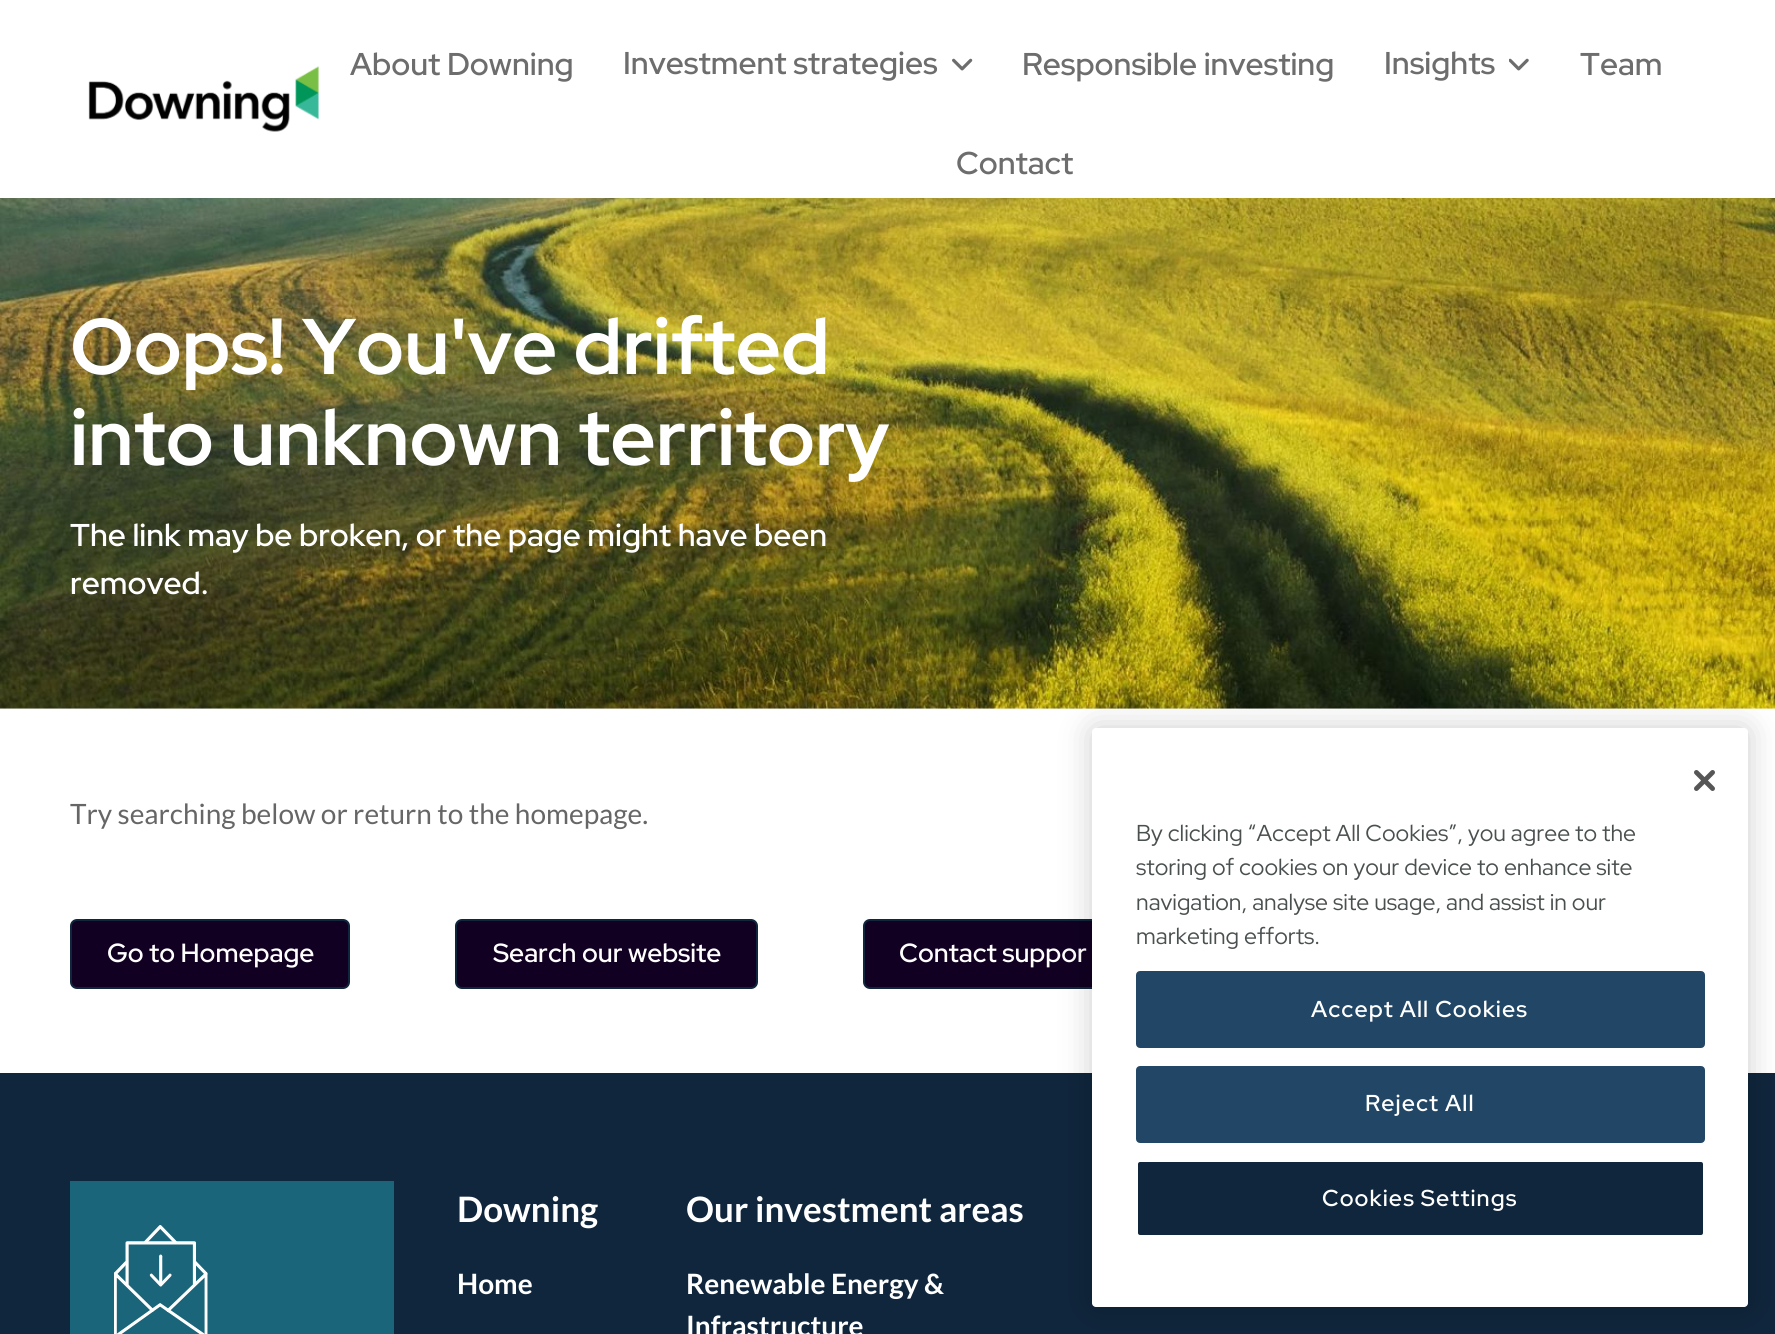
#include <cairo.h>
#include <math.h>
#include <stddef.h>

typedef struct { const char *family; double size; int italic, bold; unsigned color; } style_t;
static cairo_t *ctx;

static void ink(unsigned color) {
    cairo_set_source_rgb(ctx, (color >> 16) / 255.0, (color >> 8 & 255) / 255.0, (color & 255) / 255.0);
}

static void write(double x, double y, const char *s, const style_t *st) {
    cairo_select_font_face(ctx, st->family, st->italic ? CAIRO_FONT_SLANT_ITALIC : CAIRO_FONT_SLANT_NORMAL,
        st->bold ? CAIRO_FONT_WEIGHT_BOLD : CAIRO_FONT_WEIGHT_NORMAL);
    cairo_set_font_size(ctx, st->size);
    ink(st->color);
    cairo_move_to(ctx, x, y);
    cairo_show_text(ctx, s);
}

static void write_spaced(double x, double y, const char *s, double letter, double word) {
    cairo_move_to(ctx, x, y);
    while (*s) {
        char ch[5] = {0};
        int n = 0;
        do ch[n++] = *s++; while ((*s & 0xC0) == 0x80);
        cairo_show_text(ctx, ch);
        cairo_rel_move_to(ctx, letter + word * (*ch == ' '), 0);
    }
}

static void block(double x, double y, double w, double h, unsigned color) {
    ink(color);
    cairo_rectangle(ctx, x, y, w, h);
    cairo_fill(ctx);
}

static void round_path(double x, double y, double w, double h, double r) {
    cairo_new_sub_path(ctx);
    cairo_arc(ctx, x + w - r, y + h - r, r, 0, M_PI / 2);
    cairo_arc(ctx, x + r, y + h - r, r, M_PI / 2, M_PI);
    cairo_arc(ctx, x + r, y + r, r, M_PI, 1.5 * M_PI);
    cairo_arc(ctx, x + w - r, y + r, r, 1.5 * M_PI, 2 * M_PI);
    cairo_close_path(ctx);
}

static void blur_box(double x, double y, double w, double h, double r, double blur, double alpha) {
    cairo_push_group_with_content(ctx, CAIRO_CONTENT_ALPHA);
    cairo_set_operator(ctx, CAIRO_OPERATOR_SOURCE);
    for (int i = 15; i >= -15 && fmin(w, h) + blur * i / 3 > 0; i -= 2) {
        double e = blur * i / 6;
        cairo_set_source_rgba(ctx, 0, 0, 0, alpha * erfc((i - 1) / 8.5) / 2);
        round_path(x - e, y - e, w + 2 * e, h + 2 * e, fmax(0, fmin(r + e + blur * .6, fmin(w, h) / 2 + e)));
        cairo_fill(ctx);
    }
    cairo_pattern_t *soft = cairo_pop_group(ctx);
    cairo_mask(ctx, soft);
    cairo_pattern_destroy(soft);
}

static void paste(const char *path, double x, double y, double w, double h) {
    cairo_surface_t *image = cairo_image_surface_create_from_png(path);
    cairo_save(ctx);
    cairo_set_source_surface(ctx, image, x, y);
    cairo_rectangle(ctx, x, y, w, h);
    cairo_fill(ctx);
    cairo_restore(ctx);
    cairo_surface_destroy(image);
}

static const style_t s1 = {"Red Hat Display SemiBold", 31.5, 0, 0, 0x6d6d6d};
static const style_t s2 = {"Red Hat Display", 78.75, 0, 1, 0xffffff};
static const style_t s3 = {"Red Hat Display SemiBold", 31.5, 0, 0, 0xffffff};
static const style_t s4 = {"Lato", 28, 0, 0, 0x666666};
static const style_t s5 = {"Red Hat Display SemiBold", 26.25, 0, 0, 0xffffff};
static const style_t s6 = {"Lato", 35, 0, 1, 0xffffff};
static const style_t s7 = {"Lato", 28, 0, 1, 0xffffff};
static const style_t s8 = {"Red Hat Display", 23, 0, 0, 0x4a4f4f};

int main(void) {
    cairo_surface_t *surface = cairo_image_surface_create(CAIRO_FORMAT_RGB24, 1775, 1334);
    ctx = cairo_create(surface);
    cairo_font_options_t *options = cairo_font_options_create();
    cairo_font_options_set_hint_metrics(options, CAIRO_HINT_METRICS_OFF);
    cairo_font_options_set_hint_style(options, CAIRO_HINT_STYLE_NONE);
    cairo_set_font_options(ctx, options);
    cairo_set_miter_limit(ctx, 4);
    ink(0xffffff);
    cairo_paint(ctx);
    paste("pic1.png", 88, 66, 231, 66);
    write(350, 75, "About Downing", &s1);
    write(623, 74, "Investment strategies", &s1);
    paste("pic2.png", 952, 58, 21, 13);
    write(1022, 75, "Responsible investing", &s1);
    write(1384, 74, "Insights", &s1);
    paste("pic3.png", 1509, 58, 20, 13);
    write(1580, 75, "Team", &s1);
    write(956, 174, "Contact", &s1);
    paste("pic4.png", 0, 198, 1775, 511);
    write(70, 374, "Oops! You've drifted", &s2);
    write(70, 465, "into unknown territory", &s2);
    write(70, 546, "The link may be broken, or the page might have been", &s3);
    write(70, 594, "removed.", &s3);
    write(70, 824, "Try searching below or return to the homepage.", &s4);
    ink(0x110022);
    round_path(71, 920, 278, 68, 6);
    cairo_fill_preserve(ctx);
    ink(0x10263c);
    cairo_stroke(ctx);
    write(107, 962, "Go to Homepage", &s5);
    ink(0x110022);
    round_path(456, 920, 301, 68, 6);
    cairo_fill_preserve(ctx);
    ink(0x10263c);
    cairo_stroke(ctx);
    write(493, 962, "Search our website", &s5);
    ink(0x110022);
    round_path(864, 920, 269, 68, 6);
    cairo_fill_preserve(ctx);
    ink(0x10263c);
    cairo_stroke(ctx);
    write(899, 962, "Contact suppor", &s5);
    block(0, 1073, 1775, 261, 0x10263c);
    block(70, 1181, 324, 153, 0x1a6579);
    paste("pic5.png", 114, 1225, 94, 109);
    write(457, 1222, "Downing", &s6);
    write(457, 1294, "Home", &s7);
    write(686, 1222, "Our investment areas", &s6);
    write(686, 1294, "Renewable Energy &", &s7);
    write(686, 1336, "Infrastructure", &s7);
    ink(0x000000);
    blur_box(1092, 728, 656, 579, 4, 16, 0.2);
    ink(0xffffff);
    round_path(1092, 728, 656, 579, 4);
    cairo_fill(ctx);
    paste("pic6.png", 1694, 770, 21, 21);
    write(1136, 841, "By clicking “Accept All Cookies”, you agree to the", &s8);
    write(1136, 875, "storing of cookies on your device to enhance site", &s8);
    write(1136, 910, "navigation, analyse site usage, and assist in our", &s8);
    write(1136, 944, "marketing efforts.", &s8);
    ink(0x224666);
    round_path(1137, 972, 567, 75, 3);
    cairo_fill_preserve(ctx);
    cairo_stroke(ctx);
    cairo_select_font_face(ctx, "Red Hat Display SemiBold", CAIRO_FONT_SLANT_NORMAL, CAIRO_FONT_WEIGHT_NORMAL);
    ink(0xffffff);
    write_spaced(1311, 1017, "Accept All Cookies", 1.1, 0);
    ink(0x224666);
    round_path(1137, 1067, 567, 75, 3);
    cairo_fill_preserve(ctx);
    cairo_stroke(ctx);
    ink(0xffffff);
    write_spaced(1365, 1111, "Reject All", 1.1, 0);
    ink(0x10263c);
    round_path(1137, 1161, 567, 75, 3);
    cairo_fill_preserve(ctx);
    ink(0xffffff);
    cairo_stroke(ctx);
    write_spaced(1322, 1206, "Cookies Settings", 1.1, 0);
    cairo_surface_write_to_png(surface, "screenshot.png");
    cairo_font_options_destroy(options);
    cairo_destroy(ctx);
    cairo_surface_destroy(surface);
    return 0;
}
